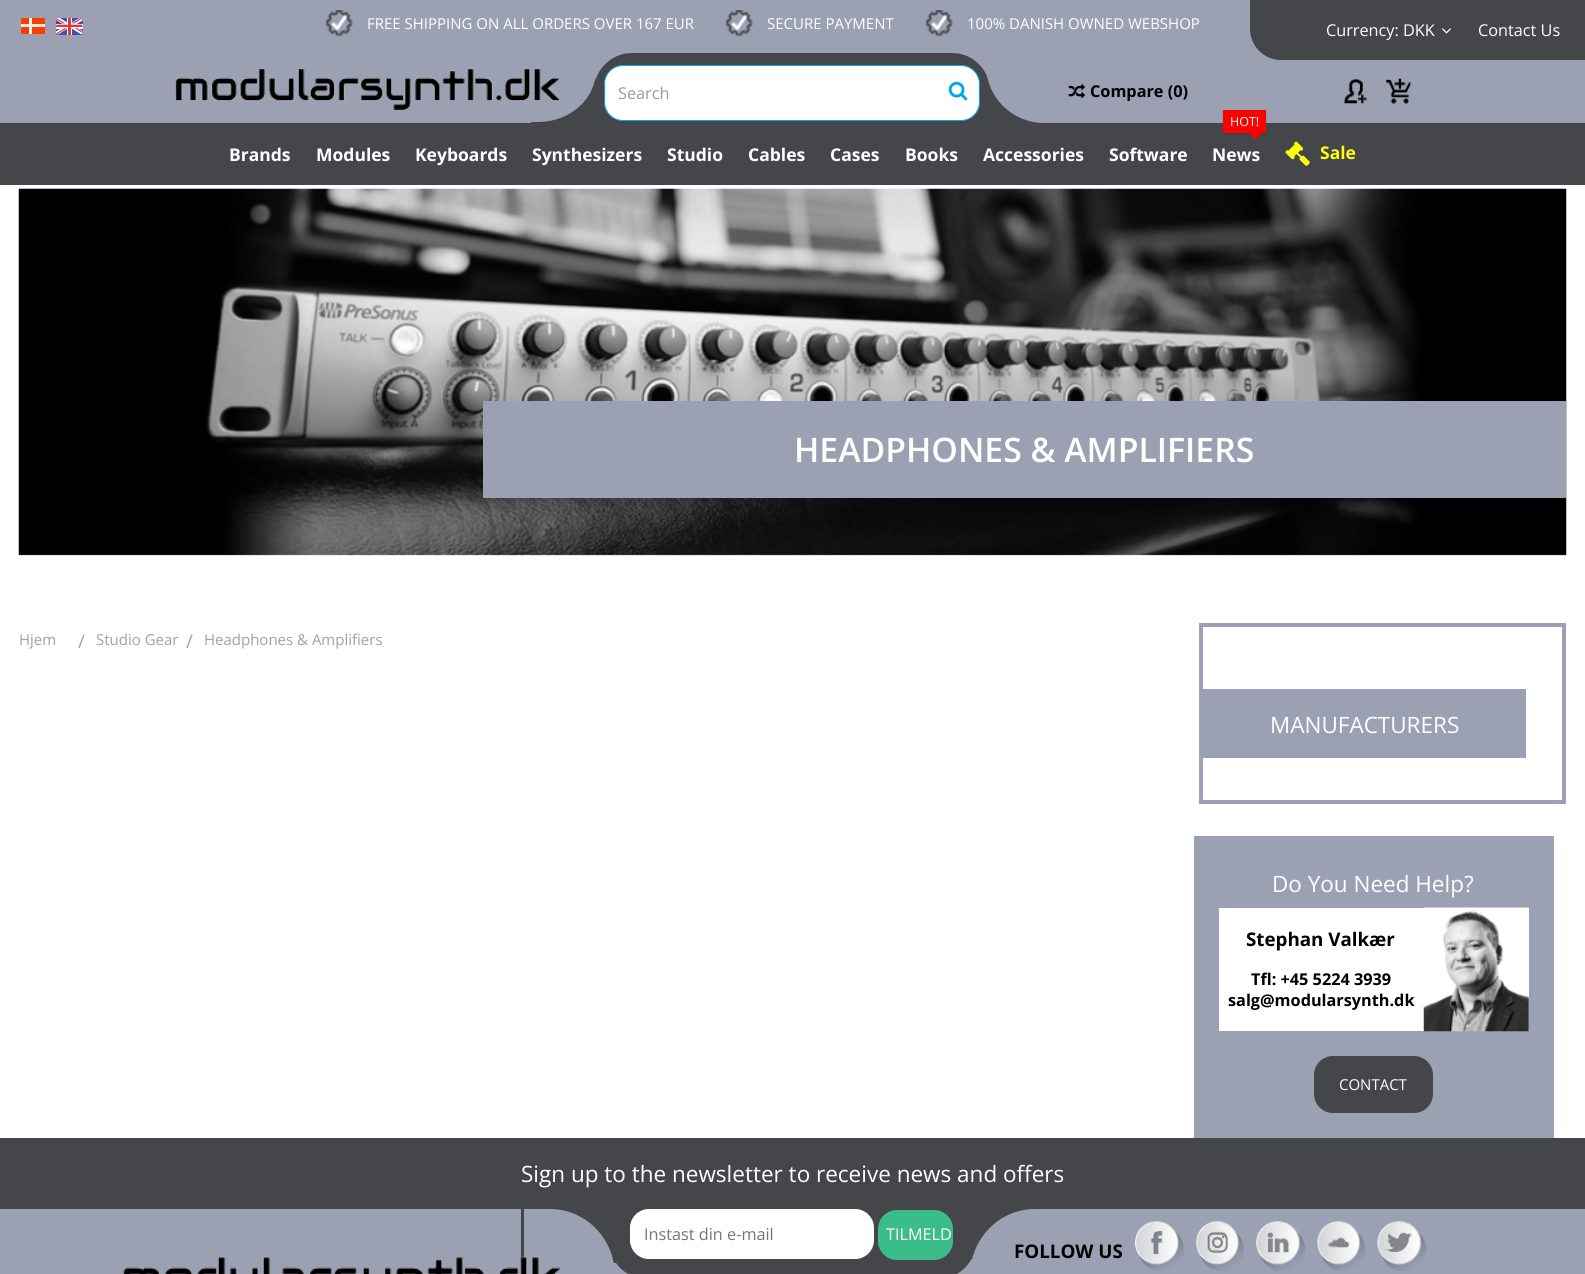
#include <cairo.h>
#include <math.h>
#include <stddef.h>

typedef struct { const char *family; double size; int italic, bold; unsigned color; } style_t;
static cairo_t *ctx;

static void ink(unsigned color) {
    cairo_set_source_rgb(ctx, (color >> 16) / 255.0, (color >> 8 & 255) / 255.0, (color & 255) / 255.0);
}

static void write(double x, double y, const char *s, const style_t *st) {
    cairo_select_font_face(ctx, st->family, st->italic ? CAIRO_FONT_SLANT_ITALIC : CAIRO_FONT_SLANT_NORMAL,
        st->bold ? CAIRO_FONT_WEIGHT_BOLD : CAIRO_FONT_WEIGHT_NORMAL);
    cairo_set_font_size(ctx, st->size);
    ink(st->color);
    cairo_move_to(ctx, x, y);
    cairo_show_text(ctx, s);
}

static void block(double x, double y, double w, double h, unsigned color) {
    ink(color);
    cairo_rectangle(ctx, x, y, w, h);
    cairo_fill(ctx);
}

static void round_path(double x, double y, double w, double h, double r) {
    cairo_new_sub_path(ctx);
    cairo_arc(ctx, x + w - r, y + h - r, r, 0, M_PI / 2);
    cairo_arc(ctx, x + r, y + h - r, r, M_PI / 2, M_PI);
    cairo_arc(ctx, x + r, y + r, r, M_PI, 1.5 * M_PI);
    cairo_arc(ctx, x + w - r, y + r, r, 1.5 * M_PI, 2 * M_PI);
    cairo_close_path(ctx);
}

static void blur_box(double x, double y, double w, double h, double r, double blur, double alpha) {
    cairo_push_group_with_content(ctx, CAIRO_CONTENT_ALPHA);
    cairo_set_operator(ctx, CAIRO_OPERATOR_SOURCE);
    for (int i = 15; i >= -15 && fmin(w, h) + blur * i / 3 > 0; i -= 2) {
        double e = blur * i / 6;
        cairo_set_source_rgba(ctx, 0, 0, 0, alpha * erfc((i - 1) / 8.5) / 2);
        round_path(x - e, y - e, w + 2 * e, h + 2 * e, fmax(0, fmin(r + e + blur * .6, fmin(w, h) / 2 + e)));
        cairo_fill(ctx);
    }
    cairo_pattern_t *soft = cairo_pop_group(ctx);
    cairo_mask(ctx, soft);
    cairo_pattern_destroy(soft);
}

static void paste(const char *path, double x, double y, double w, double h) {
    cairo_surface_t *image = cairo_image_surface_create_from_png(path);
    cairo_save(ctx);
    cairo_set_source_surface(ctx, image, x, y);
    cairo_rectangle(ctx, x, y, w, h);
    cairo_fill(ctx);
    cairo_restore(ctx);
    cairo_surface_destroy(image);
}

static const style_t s1 = {"Open Sans", 15, 0, 0, 0xffffff};
static const style_t s2 = {"Open Sans", 16.25, 0, 0, 0xffffff};
static const style_t s3 = {"Open Sans", 16.25, 0, 0, 0x9c9b9b};
static const style_t s4 = {"Open Sans", 16.25, 0, 1, 0x000000};
static const style_t s5 = {"Open Sans", 17.5, 0, 1, 0xffffff};
static const style_t s6 = {"Open Sans", 12.5, 0, 0, 0xffffff};
static const style_t s7 = {"Open Sans", 17.5, 0, 1, 0xfdff0e};
static const style_t s8 = {"Open Sans SemiBold", 33.75, 0, 0, 0xffffff};
static const style_t s9 = {"Open Sans", 15, 0, 0, 0x9ba0b3};
static const style_t s10 = {"Open Sans", 18.75, 0, 0, 0x9ba0b3};
static const style_t s11 = {"Open Sans", 22.5, 0, 0, 0xffffff};
static const style_t s12 = {"Open Sans", 18.75, 0, 1, 0x000000};
static const style_t s13 = {"Open Sans", 16.25, 0, 0, 0x757575};

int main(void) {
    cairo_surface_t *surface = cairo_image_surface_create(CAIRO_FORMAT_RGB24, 1585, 1274);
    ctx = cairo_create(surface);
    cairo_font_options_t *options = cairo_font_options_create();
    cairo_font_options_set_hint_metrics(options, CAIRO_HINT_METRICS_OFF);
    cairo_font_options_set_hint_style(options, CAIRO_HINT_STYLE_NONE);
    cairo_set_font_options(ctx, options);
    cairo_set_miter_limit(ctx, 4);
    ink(0xffffff);
    cairo_paint(ctx);
    block(0, 0, 1281, 60, 0x9ba0b3);
    block(21, 18, 24, 16, 0xff3d00);
    block(21, 24, 24, 3, 0xeceff1);
    block(29, 18, 3, 16, 0xeceff1);
    paste("pic1.png", 56, 18, 27, 17);
    paste("pic2.png", 326, 10, 27, 27);
    write(367, 29, "FREE SHIPPING ON ALL ORDERS OVER 167 EUR", &s1);
    paste("pic2.png", 726, 10, 27, 27);
    write(767, 29, "SECURE PAYMENT", &s1);
    paste("pic2.png", 926, 10, 27, 27);
    write(967, 29, "100% DANISH OWNED WEBSHOP", &s1);
    ink(0x45464a);
    cairo_new_path(ctx);
    cairo_move_to(ctx, 1250, 0);
    cairo_line_to(ctx, 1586, 0);
    cairo_line_to(ctx, 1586, 60);
    cairo_line_to(ctx, 1281, 60);
    cairo_curve_to(ctx, 1264, 60, 1250, 46, 1250, 29);
    cairo_close_path(ctx);
    cairo_fill(ctx);
    write(1326, 36, "Currency: DKK", &s2);
    paste("pic3.png", 1442, 28, 9, 6);
    write(1478, 36, "Contact Us", &s2);
    block(0, 60, 1585, 63, 0x9ba0b3);
    ink(0x45464a);
    cairo_new_path(ctx);
    cairo_move_to(ctx, 632, 53);
    cairo_line_to(ctx, 952, 53);
    cairo_curve_to(ctx, 973, 53, 990, 70, 990, 91);
    cairo_line_to(ctx, 990, 123);
    cairo_line_to(ctx, 594, 123);
    cairo_line_to(ctx, 594, 91);
    cairo_curve_to(ctx, 594, 70, 611, 53, 632, 53);
    cairo_close_path(ctx);
    cairo_fill(ctx);
    block(531, 79, 65, 44, 0x45464a);
    ink(0x9ba0b3);
    cairo_new_path(ctx);
    cairo_move_to(ctx, 514, 48);
    cairo_line_to(ctx, 596, 48);
    cairo_line_to(ctx, 596, 70);
    cairo_curve_to(ctx, 596, 99, 570, 122, 538, 122);
    cairo_line_to(ctx, 514, 122);
    cairo_close_path(ctx);
    cairo_fill(ctx);
    paste("pic4.png", 175, 68, 385, 42);
    ink(0xffffff);
    round_path(604.5, 65.5, 375, 55, 18.5);
    cairo_fill_preserve(ctx);
    ink(0x00a6e6);
    cairo_set_line_width(ctx, 1);
    cairo_stroke(ctx);
    write(618, 99, "Search", &s3);
    paste("pic5.png", 948, 81, 20, 20);
    block(987, 78, 56, 45, 0x45464a);
    ink(0x9ba0b3);
    cairo_new_path(ctx);
    cairo_move_to(ctx, 986, 40);
    cairo_line_to(ctx, 998, 40);
    cairo_curve_to(ctx, 1037, 40, 1069, 72, 1069, 111);
    cairo_line_to(ctx, 1069, 123);
    cairo_line_to(ctx, 1044, 123);
    cairo_curve_to(ctx, 1012, 123, 986, 97, 986, 65);
    cairo_close_path(ctx);
    cairo_fill(ctx);
    paste("pic6.png", 1068, 83, 17, 16);
    write(1090, 97, "Compare (0)", &s4);
    paste("pic7.png", 1343, 79, 24, 25);
    paste("pic8.png", 1386, 78, 26, 26);
    block(0, 123, 1585, 62, 0x45464a);
    write(229, 161, "Brands", &s5);
    write(316, 161, "Modules", &s5);
    write(415, 161, "Keyboards", &s5);
    write(532, 161, "Synthesizers", &s5);
    write(667, 161, "Studio", &s5);
    write(748, 161, "Cables", &s5);
    write(830, 161, "Cases", &s5);
    write(905, 161, "Books", &s5);
    write(983, 161, "Accessories", &s5);
    write(1109, 161, "Software", &s5);
    ink(0x000000);
    blur_box(1223, 111, 43, 23, 0, 1, 0.15);
    block(1223, 110, 43, 23, 0xff0000);
    write(1230, 126, "HOT!", &s6);
    paste("pic9.png", 1250, 133, 11, 7);
    write(1212, 161, "News", &s5);
    paste("pic10.png", 1285, 141, 25, 25);
    write(1320, 159, "Sale", &s7);
    paste("pic11.png", 18, 188, 1549, 368);
    block(483, 401, 1083, 97, 0x9ba0b3);
    write(794, 462, "HEADPHONES & AMPLIFIERS", &s8);
    write(19, 645, "Hjem", &s9);
    write(78, 648, "/", &s10);
    write(96, 645, "Studio Gear", &s9);
    write(186, 648, "/", &s10);
    write(204, 645, "Headphones & Amplifiers", &s9);
    cairo_rectangle(ctx, 1201, 625, 363, 177);
    cairo_set_line_width(ctx, 4);
    cairo_stroke(ctx);
    block(1203, 689, 323, 69, 0x9ba0b3);
    write(1270, 733, "MANUFACTURERS", &s11);
    block(1194, 836, 360, 302, 0x9ba0b3);
    write(1272, 892, "Do You Need Help?", &s11);
    block(1219, 908, 310, 123, 0xffffff);
    write(1246, 946, "Stephan Valkær", &s12);
    write(1251, 985, "Tfl: +45 5224 3939", &s4);
    write(1228, 1006, "salg@modularsynth.dk", &s4);
    paste("pic12.png", 1423, 907, 106, 125);
    ink(0x45464a);
    round_path(1314, 1056, 119, 57, 19);
    cairo_fill(ctx);
    write(1339, 1090, "CONTACT", &s1);
    block(0, 1138, 1585, 71, 0x45464a);
    write(521, 1182, "Sign up to the newsletter to receive news and offers", &s11);
    block(0, 1209, 1585, 65, 0x9ba0b3);
    ink(0x45464a);
    cairo_new_path(ctx);
    cairo_move_to(ctx, 609, 1209);
    cairo_line_to(ctx, 976, 1209);
    cairo_line_to(ctx, 976, 1241);
    cairo_curve_to(ctx, 976, 1262, 959, 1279, 938, 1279);
    cairo_line_to(ctx, 647, 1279);
    cairo_curve_to(ctx, 626, 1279, 609, 1262, 609, 1241);
    cairo_close_path(ctx);
    cairo_fill(ctx);
    block(521, 1209, 95, 54, 0x45464a);
    ink(0x9ba0b3);
    cairo_new_path(ctx);
    cairo_move_to(ctx, 524, 1209);
    cairo_line_to(ctx, 550, 1209);
    cairo_curve_to(ctx, 586, 1209, 615, 1239, 615, 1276);
    cairo_line_to(ctx, 615, 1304);
    cairo_line_to(ctx, 524, 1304);
    cairo_close_path(ctx);
    cairo_fill(ctx);
    ink(0xffffff);
    round_path(630.5, 1209.5, 243, 49, 18.5);
    cairo_fill_preserve(ctx);
    cairo_set_line_width(ctx, 1);
    cairo_stroke(ctx);
    write(644, 1240, "Instast din e-mail", &s13);
    ink(0x3abd8b);
    round_path(878, 1210, 75, 50, 19);
    cairo_fill(ctx);
    write(886, 1240, "TILMELD", &s2);
    block(971, 1209, 74, 50, 0x45464a);
    ink(0x9ba0b3);
    cairo_new_path(ctx);
    cairo_move_to(ctx, 1035, 1209);
    cairo_line_to(ctx, 1061, 1209);
    cairo_line_to(ctx, 1061, 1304);
    cairo_line_to(ctx, 970, 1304);
    cairo_line_to(ctx, 970, 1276);
    cairo_curve_to(ctx, 970, 1239, 999, 1209, 1035, 1209);
    cairo_close_path(ctx);
    cairo_fill(ctx);
    write(1014, 1258, "FOLLOW US", &s12);
    paste("pic13.png", 1135, 1221, 49, 50);
    paste("pic14.png", 1196, 1221, 48, 50);
    paste("pic15.png", 1256, 1221, 49, 50);
    paste("pic16.png", 1317, 1221, 48, 50);
    paste("pic17.png", 1377, 1221, 50, 50);
    paste("pic18.png", 123, 1256, 438, 18);
    cairo_surface_write_to_png(surface, "screenshot.png");
    cairo_font_options_destroy(options);
    cairo_destroy(ctx);
    cairo_surface_destroy(surface);
    return 0;
}
